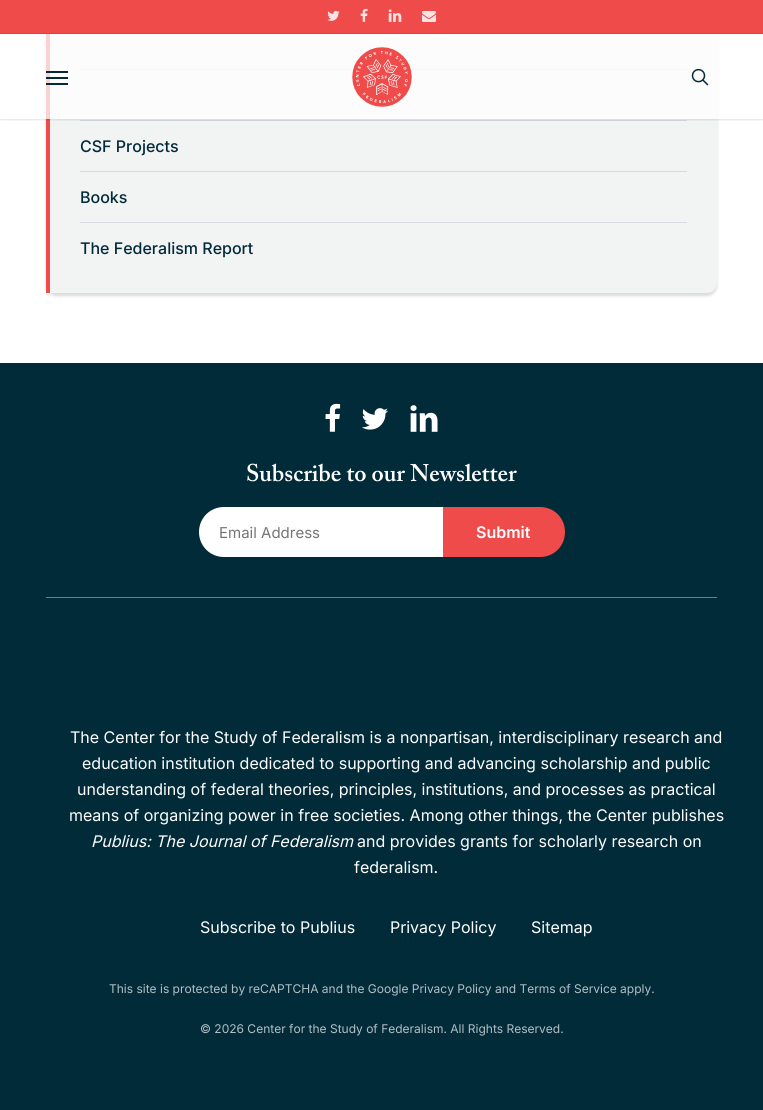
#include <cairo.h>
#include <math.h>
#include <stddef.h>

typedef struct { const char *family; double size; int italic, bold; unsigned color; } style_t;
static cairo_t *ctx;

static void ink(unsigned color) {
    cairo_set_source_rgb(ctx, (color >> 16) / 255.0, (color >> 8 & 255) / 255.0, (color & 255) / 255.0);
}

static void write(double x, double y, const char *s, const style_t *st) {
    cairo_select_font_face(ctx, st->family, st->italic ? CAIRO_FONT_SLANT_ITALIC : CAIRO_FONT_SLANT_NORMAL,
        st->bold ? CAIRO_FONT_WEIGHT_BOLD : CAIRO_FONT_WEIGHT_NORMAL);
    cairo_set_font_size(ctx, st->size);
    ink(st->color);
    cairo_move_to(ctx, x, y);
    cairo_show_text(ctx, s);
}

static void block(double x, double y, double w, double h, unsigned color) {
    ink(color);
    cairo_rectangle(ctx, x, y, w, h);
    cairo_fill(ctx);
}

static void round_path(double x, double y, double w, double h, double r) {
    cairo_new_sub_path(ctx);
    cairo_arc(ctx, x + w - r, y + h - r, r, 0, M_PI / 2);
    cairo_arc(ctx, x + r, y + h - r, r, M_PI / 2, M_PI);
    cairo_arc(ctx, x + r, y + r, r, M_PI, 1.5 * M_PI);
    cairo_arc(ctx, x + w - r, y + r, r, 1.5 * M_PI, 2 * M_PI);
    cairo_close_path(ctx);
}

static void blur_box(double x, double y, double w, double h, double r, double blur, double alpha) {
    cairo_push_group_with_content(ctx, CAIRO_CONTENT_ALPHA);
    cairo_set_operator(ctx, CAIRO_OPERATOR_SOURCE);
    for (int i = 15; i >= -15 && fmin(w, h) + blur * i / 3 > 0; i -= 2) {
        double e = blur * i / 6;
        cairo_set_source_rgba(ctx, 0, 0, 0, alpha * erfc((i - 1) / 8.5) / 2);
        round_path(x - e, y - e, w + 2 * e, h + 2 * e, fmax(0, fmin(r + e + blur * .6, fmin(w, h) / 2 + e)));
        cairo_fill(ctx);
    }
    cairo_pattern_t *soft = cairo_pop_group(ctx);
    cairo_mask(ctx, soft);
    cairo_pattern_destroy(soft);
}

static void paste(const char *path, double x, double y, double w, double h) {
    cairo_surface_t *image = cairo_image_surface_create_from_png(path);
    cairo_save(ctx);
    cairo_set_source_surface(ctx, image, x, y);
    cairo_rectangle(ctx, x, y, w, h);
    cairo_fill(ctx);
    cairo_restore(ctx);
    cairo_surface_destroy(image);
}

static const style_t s1 = {"Inter Medium", 16, 0, 0, 0x022b3a};
static const style_t s2 = {"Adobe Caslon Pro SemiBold", 24, 0, 0, 0xffffff};
static const style_t s3 = {"Inter", 15, 0, 0, 0x757575};
static const style_t s4 = {"Inter SemiBold", 16, 0, 0, 0xffffff};
static const style_t s5 = {"Inter", 16, 0, 0, 0xffffff};
static const style_t s6 = {"Inter", 16, 1, 0, 0xffffff};
static const style_t s7 = {"Inter", 12, 0, 0, 0xb3bfc4};

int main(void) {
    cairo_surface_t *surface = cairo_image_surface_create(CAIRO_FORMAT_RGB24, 763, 1110);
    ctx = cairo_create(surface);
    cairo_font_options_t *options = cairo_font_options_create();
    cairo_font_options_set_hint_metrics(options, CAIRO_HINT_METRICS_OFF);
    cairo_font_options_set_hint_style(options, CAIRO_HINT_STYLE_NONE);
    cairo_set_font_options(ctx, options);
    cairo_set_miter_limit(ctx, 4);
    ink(0xffffff);
    cairo_paint(ctx);
    ink(0x000000);
    blur_box(46, -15, 671, 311, 10, 1.5, 0.15);
    ink(0xf2f3f3);
    cairo_new_path(ctx);
    cairo_move_to(ctx, 46, -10);
    cairo_line_to(ctx, 707, -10);
    cairo_curve_to(ctx, 712.5, -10, 717, -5.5, 717, 0);
    cairo_line_to(ctx, 717, 283);
    cairo_curve_to(ctx, 717, 288.5, 712.5, 293, 707, 293);
    cairo_line_to(ctx, 46, 293);
    cairo_close_path(ctx);
    cairo_fill(ctx);
    block(46, 34, 4, 259, 0xf04b4b);
    block(80, 69, 607, 1, 0xd6dbe3);
    block(80, 120, 607, 1, 0xd6dbe3);
    cairo_save(ctx);
    cairo_rectangle(ctx, 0, 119, 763, 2);
    cairo_clip(ctx);
    ink(0x000000);
    blur_box(0, 0, 763, 119, 0, 1.5, 0.22);
    cairo_restore(ctx);
    cairo_set_source_rgba(ctx, 1, 1, 1, 0.75);
    cairo_rectangle(ctx, 44, 34, 675, 85);
    cairo_fill(ctx);
    block(0, 0, 763, 33, 0xf04b4b);
    block(0, 33, 763, 1, 0xd84444);
    paste("pic1.png", 327, 10, 13, 11);
    paste("pic2.png", 360, 8, 8, 14);
    paste("pic3.png", 388, 9, 14, 13);
    paste("pic4.png", 422, 11, 14, 11);
    paste("pic5.png", 352, 47, 60, 60);
    block(46, 71, 22, 2, 0x022b3a);
    block(46, 83, 22, 2, 0x022b3a);
    block(46, 77, 22, 2, 0x022b3a);
    paste("pic6.png", 691, 68, 18, 18);
    block(80, 171, 607, 1, 0xd6dbe3);
    write(80, 152, "CSF Projects", &s1);
    block(80, 222, 607, 1, 0xd6dbe3);
    write(80, 203, "Books", &s1);
    write(80, 254, "The Federalism Report", &s1);
    block(0, 363, 763, 747, 0x022b3a);
    block(46, 597, 671, 1, 0x678089);
    paste("pic7.png", 325, 403, 16, 29);
    paste("pic8.png", 362, 408, 26, 22);
    paste("pic9.png", 410, 405, 28, 27);
    write(246, 481, "Subscribe to our Newsletter", &s2);
    cairo_new_path(ctx);
    cairo_move_to(ctx, 224, 507);
    cairo_line_to(ctx, 443, 507);
    cairo_line_to(ctx, 443, 557);
    cairo_line_to(ctx, 224, 557);
    cairo_curve_to(ctx, 210, 557, 199, 546, 199, 532);
    cairo_curve_to(ctx, 199, 518, 210, 507, 224, 507);
    cairo_close_path(ctx);
    cairo_fill(ctx);
    write(219, 538, "Email Address", &s3);
    ink(0xf04b4b);
    cairo_new_path(ctx);
    cairo_move_to(ctx, 443, 507);
    cairo_line_to(ctx, 540, 507);
    cairo_curve_to(ctx, 554, 507, 565, 518, 565, 532);
    cairo_curve_to(ctx, 565, 546, 554, 557, 540, 557);
    cairo_line_to(ctx, 443, 557);
    cairo_close_path(ctx);
    cairo_fill(ctx);
    write(476, 538, "Submit", &s4);
    write(70, 743, "The Center for the Study of Federalism is a nonpartisan, interdisciplinary research and", &s5);
    write(82, 769, "education institution dedicated to supporting and advancing scholarship and public", &s5);
    write(77, 795, "understanding of federal theories, principles, institutions, and processes as practical", &s5);
    write(69, 821, "means of organizing power in free societies. Among other things, the Center publishes", &s5);
    write(91, 847, "Publius: The Journal of Federalism", &s6);
    write(357, 847, "and provides grants for scholarly research on", &s5);
    write(354, 873, "federalism.", &s5);
    write(200, 933, "Subscribe to Publius", &s5);
    write(390, 933, "Privacy Policy", &s5);
    write(531, 933, "Sitemap", &s5);
    write(109, 993, "This site is protected by reCAPTCHA and the Google Privacy Policy and Terms of Service apply.", &s7);
    write(200, 1033, "© 2026 Center for the Study of Federalism. All Rights Reserved.", &s7);
    cairo_surface_write_to_png(surface, "screenshot.png");
    cairo_font_options_destroy(options);
    cairo_destroy(ctx);
    cairo_surface_destroy(surface);
    return 0;
}
